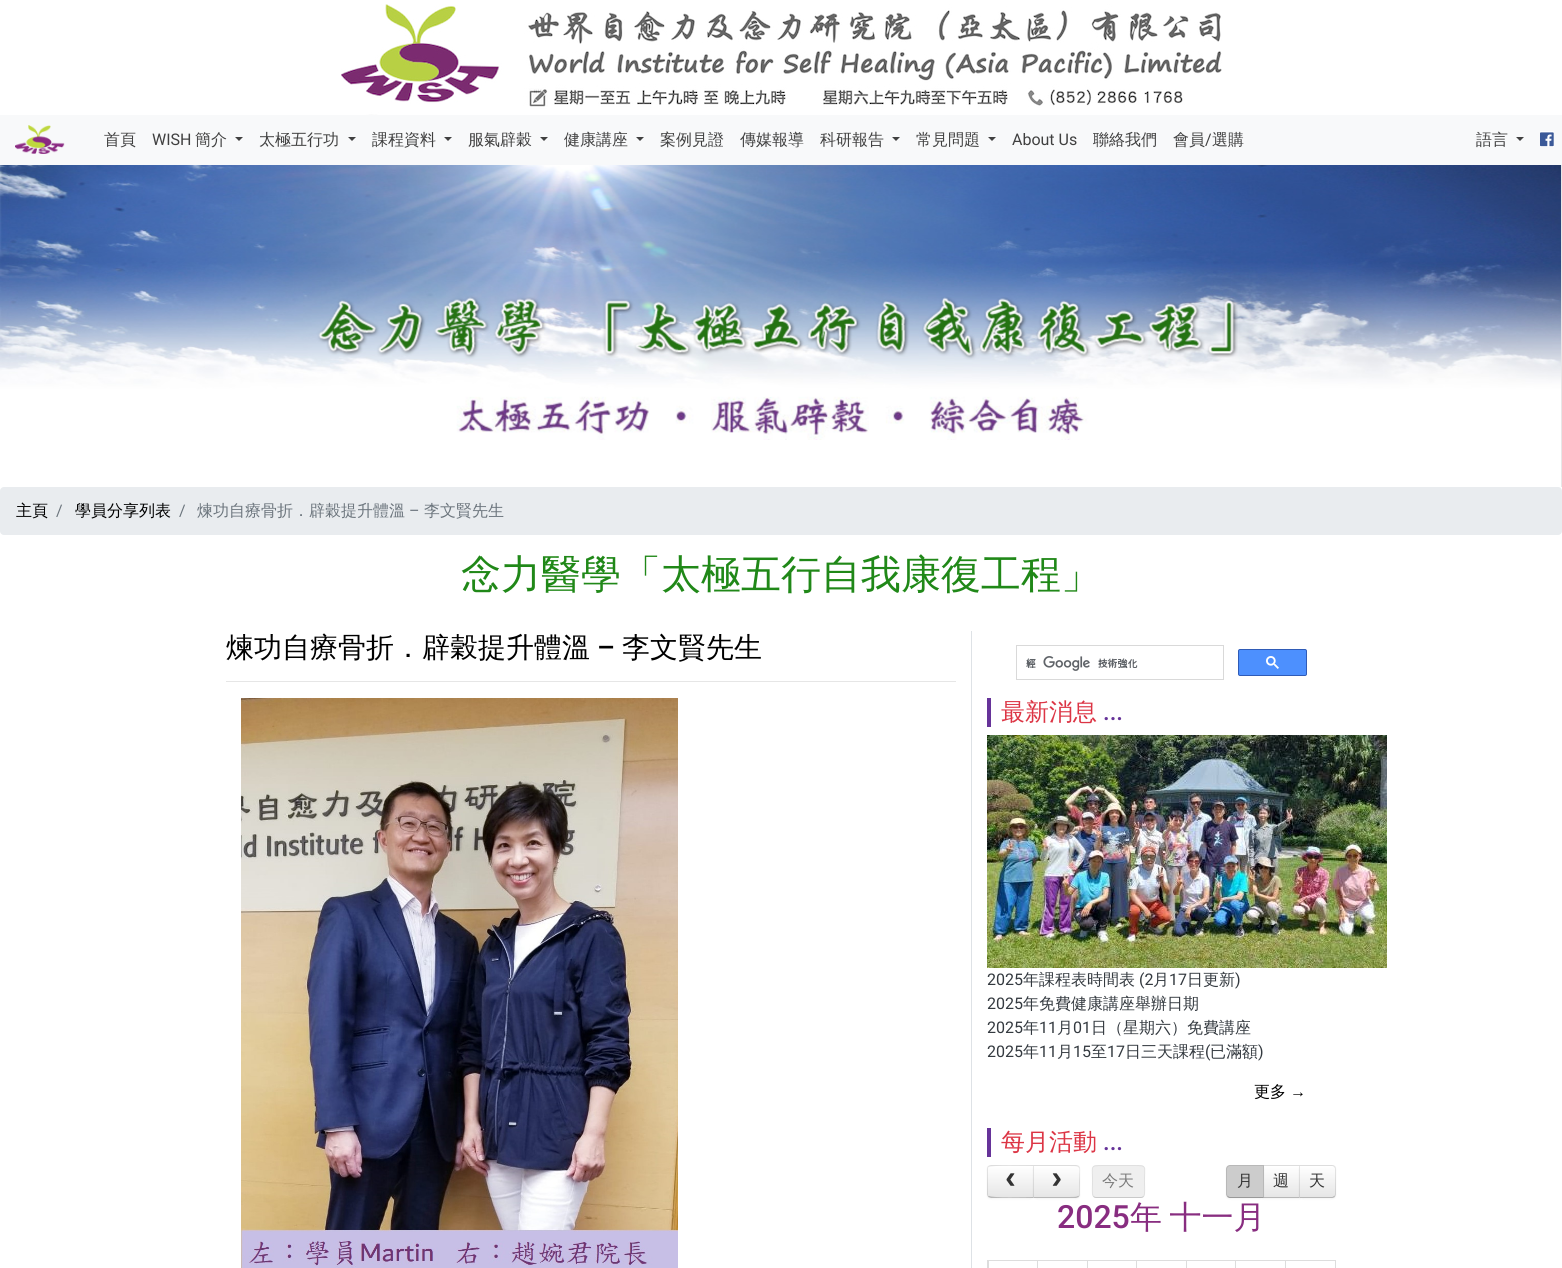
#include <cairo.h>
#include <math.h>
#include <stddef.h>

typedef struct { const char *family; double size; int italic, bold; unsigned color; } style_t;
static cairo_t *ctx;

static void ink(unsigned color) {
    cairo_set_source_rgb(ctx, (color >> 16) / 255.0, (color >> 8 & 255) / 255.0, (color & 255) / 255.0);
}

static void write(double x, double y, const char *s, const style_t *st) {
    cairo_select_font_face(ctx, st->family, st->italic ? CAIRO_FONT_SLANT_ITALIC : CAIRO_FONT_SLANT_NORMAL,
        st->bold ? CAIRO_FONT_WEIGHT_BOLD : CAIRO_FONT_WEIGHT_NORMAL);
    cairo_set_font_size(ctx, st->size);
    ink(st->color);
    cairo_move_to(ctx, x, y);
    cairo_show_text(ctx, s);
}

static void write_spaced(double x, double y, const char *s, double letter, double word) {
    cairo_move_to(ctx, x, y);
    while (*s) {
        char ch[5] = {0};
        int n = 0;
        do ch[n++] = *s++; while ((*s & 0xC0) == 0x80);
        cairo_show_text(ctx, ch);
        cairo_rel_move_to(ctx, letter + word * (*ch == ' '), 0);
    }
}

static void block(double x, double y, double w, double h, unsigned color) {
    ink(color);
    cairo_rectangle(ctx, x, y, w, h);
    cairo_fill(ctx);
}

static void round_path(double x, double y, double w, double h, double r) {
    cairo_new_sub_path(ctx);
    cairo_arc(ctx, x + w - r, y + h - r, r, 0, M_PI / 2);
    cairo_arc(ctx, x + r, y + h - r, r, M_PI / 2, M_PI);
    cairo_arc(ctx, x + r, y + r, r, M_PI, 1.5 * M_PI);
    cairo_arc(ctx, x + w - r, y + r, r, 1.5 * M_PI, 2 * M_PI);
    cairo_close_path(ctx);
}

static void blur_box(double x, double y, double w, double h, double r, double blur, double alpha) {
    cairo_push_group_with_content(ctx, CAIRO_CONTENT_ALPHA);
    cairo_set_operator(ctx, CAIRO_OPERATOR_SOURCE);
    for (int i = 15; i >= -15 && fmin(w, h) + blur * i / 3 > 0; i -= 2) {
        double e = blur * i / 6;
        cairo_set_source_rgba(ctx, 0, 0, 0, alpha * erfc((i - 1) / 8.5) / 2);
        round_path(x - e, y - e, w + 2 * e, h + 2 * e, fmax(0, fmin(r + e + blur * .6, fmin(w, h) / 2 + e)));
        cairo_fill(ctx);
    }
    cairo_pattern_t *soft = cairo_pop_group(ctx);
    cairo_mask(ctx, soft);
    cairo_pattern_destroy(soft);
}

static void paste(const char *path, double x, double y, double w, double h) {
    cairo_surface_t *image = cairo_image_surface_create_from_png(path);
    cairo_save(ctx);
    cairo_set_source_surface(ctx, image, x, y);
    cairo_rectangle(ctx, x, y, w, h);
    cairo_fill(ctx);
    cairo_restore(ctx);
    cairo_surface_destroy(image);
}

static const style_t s1 = {"WenQuanYi Zen Hei Medium", 16, 0, 0, 0x404040};
static const style_t s2 = {"Roboto", 16, 0, 0, 0x404040};
static const style_t s3 = {"WenQuanYi Zen Hei Medium", 16, 0, 0, 0x000000};
static const style_t s4 = {"Roboto", 16, 0, 0, 0x6c757d};
static const style_t s5 = {"WenQuanYi Zen Hei Medium", 16, 0, 0, 0x6c757d};
static const style_t s6 = {"WenQuanYi Zen Hei Medium", 40, 0, 0, 0x208818};
static const style_t s7 = {"WenQuanYi Zen Hei Medium", 28, 0, 0, 0x000000};
static const style_t s8 = {"Roboto Medium", 28, 0, 0, 0x000000};
static const style_t s9 = {"WenQuanYi Zen Hei Medium", 24, 0, 0, 0xdc3545};
static const style_t s10 = {"Roboto Medium", 24, 0, 0, 0x663399};
static const style_t s11 = {"Roboto", 16, 0, 0, 0x343a40};
static const style_t s12 = {"WenQuanYi Zen Hei Medium", 16, 0, 0, 0x343a40};
static const style_t s13 = {"Liberation Sans", 16, 0, 0, 0x000000};
static const style_t s14 = {"Liberation Mono", 32, 0, 1, 0x333333};
static const style_t s15 = {"WenQuanYi Zen Hei Medium", 16, 0, 0, 0x7a7a7a};
static const style_t s16 = {"WenQuanYi Zen Hei Medium", 16, 0, 0, 0x333333};
static const style_t s17 = {"Roboto Medium", 32, 0, 0, 0x882d80};

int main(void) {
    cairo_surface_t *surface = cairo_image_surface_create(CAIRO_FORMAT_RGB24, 1562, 1268);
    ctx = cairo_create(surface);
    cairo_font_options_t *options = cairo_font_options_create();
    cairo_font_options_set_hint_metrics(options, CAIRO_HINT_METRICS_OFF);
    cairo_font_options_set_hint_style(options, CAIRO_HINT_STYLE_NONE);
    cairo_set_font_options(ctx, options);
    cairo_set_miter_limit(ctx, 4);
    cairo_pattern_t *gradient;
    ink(0xffffff);
    cairo_paint(ctx);
    paste("pic1.png", 341, 4, 881, 111);
    block(0, 115, 1562, 50, 0xf8f9fa);
    paste("pic2.png", 15, 125, 50, 29);
    write(104, 145, "首頁", &s1);
    write(152, 145, "WISH", &s2);
    write(195, 145, "簡介", &s1);
    cairo_new_path(ctx);
    cairo_move_to(ctx, 235, 137);
    cairo_line_to(ctx, 243, 137);
    cairo_line_to(ctx, 239, 141);
    cairo_close_path(ctx);
    cairo_fill(ctx);
    write(259, 145, "太極五行功", &s1);
    cairo_new_path(ctx);
    cairo_move_to(ctx, 348, 137);
    cairo_line_to(ctx, 356, 137);
    cairo_line_to(ctx, 352, 141);
    cairo_close_path(ctx);
    cairo_fill(ctx);
    write(372, 145, "課程資料", &s1);
    cairo_new_path(ctx);
    cairo_move_to(ctx, 444, 137);
    cairo_line_to(ctx, 452, 137);
    cairo_line_to(ctx, 448, 141);
    cairo_close_path(ctx);
    cairo_fill(ctx);
    write(468, 145, "服氣辟穀", &s1);
    cairo_new_path(ctx);
    cairo_move_to(ctx, 540, 137);
    cairo_line_to(ctx, 548, 137);
    cairo_line_to(ctx, 544, 141);
    cairo_close_path(ctx);
    cairo_fill(ctx);
    write(564, 145, "健康講座", &s1);
    cairo_new_path(ctx);
    cairo_move_to(ctx, 636, 137);
    cairo_line_to(ctx, 644, 137);
    cairo_line_to(ctx, 640, 141);
    cairo_close_path(ctx);
    cairo_fill(ctx);
    write(660, 145, "案例見證", &s1);
    write(740, 145, "傳媒報導", &s1);
    write(820, 145, "科研報告", &s1);
    cairo_new_path(ctx);
    cairo_move_to(ctx, 892, 137);
    cairo_line_to(ctx, 900, 137);
    cairo_line_to(ctx, 896, 141);
    cairo_close_path(ctx);
    cairo_fill(ctx);
    write(916, 145, "常見問題", &s1);
    cairo_new_path(ctx);
    cairo_move_to(ctx, 988, 137);
    cairo_line_to(ctx, 996, 137);
    cairo_line_to(ctx, 992, 141);
    cairo_close_path(ctx);
    cairo_fill(ctx);
    write(1012, 145, "About Us", &s2);
    write(1093, 145, "聯絡我們", &s1);
    write(1173, 145, "會員", &s1);
    write(1205, 145, "/", &s2);
    write(1212, 145, "選購", &s1);
    write(1476, 145, "語言", &s1);
    cairo_new_path(ctx);
    cairo_move_to(ctx, 1516, 137);
    cairo_line_to(ctx, 1524, 137);
    cairo_line_to(ctx, 1520, 141);
    cairo_close_path(ctx);
    cairo_fill(ctx);
    block(1540, 131, 14, 16, 0xffffff);
    paste("pic3.png", 1540, 132, 14, 15);
    paste("pic4.png", 0, 165, 1562, 322);
    ink(0xe9ecef);
    round_path(0, 487, 1562, 48, 4);
    cairo_fill(ctx);
    write(16, 516, "主頁", &s3);
    write(56, 516, "/", &s4);
    write(75, 516, "學員分享列表", &s3);
    write(179, 516, "/", &s4);
    write(197, 516, "煉功自療骨折．辟穀提升體溫", &s5);
    write(409, 516, "–", &s4);
    write(424, 516, "李文賢先生", &s5);
    write(461, 588, "念力醫學「太極五行自我康復工程」", &s6);
    write(226, 657, "煉功自療骨折．辟穀提升體溫", &s7);
    write(597, 657, "–", &s8);
    write(622, 657, "李文賢先生", &s7);
    block(226, 681, 730, 1, 0xe6e6e6);
    paste("pic5.png", 241, 698, 437, 570);
    block(971, 631, 1, 637, 0xdee2e6);
    cairo_rectangle(ctx, 1016.5, 645.5, 207, 34);
    ink(0xd9d9d9);
    cairo_set_line_width(ctx, 1);
    cairo_stroke(ctx);
    paste("pic6.png", 1026, 656, 112, 15);
    ink(0x4d90fe);
    round_path(1238.5, 649.5, 68, 26, 1.5);
    cairo_fill_preserve(ctx);
    ink(0x2f5bb7);
    cairo_stroke(ctx);
    paste("pic7.png", 1266, 656, 13, 13);
    block(987, 698, 4, 29, 0x663399);
    write(1001, 720, "最新消息", &s9);
    write(1103, 720, "...", &s10);
    paste("pic8.png", 987, 735, 400, 233);
    write(987, 985, "2025", &s11);
    write(1023, 985, "年課程表時間表", &s12);
    write(1139, 985, "(2", &s11);
    write(1153, 985, "月", &s12);
    write(1169, 985, "17", &s11);
    write(1187, 985, "日更新", &s12);
    write(1235, 985, ")", &s11);
    write(987, 1009, "2025", &s11);
    write(1023, 1009, "年免費健康講座舉辦日期", &s12);
    write(987, 1033, "2025", &s11);
    write(1023, 1033, "年", &s12);
    write(1039, 1033, "11", &s11);
    write(1057, 1033, "月", &s12);
    write(1073, 1033, "01", &s11);
    write(1091, 1033, "日（星期六）免費講座", &s12);
    write(987, 1057, "2025", &s11);
    write(1023, 1057, "年", &s12);
    write(1039, 1057, "11", &s11);
    write(1057, 1057, "月", &s12);
    write(1073, 1057, "15", &s11);
    write(1091, 1057, "至", &s12);
    write(1107, 1057, "17", &s11);
    write(1125, 1057, "日三天課程", &s12);
    write(1205, 1057, "(", &s11);
    write(1210, 1057, "已滿額", &s12);
    write(1258, 1057, ")", &s11);
    write(1254, 1097, "更多", &s3);
    write(1290, 1097, "→", &s13);
    block(987, 1128, 4, 29, 0x663399);
    write(1001, 1150, "每月活動", &s9);
    write(1103, 1150, "...", &s10);
    ink(0x000000);
    blur_box(987, 1166, 47, 33, 4, 1, 0.05);
    ink(0xf5f5f5);
    cairo_new_path(ctx);
    cairo_move_to(ctx, 991, 1165);
    cairo_line_to(ctx, 1034, 1165);
    cairo_line_to(ctx, 1034, 1198);
    cairo_line_to(ctx, 991, 1198);
    cairo_curve_to(ctx, 989, 1198, 987, 1196, 987, 1194);
    cairo_line_to(ctx, 987, 1169);
    cairo_curve_to(ctx, 987, 1167, 989, 1165, 991, 1165);
    cairo_close_path(ctx);
    cairo_fill(ctx);
    cairo_save(ctx);
    cairo_new_path(ctx);
    cairo_move_to(ctx, 991, 1165);
    cairo_line_to(ctx, 1034, 1165);
    cairo_line_to(ctx, 1034, 1198);
    cairo_line_to(ctx, 991, 1198);
    cairo_curve_to(ctx, 989, 1198, 987, 1196, 987, 1194);
    cairo_line_to(ctx, 987, 1169);
    cairo_curve_to(ctx, 987, 1167, 989, 1165, 991, 1165);
    cairo_close_path(ctx);
    cairo_clip(ctx);
    gradient = cairo_pattern_create_linear(1011, 1166, 1011, 1197);
    cairo_pattern_add_color_stop_rgba(gradient, 0, 1, 1, 1, 1);
    cairo_pattern_add_color_stop_rgba(gradient, 1, 0.902, 0.902, 0.902, 1);
    cairo_set_source(ctx, gradient);
    cairo_pattern_destroy(gradient);
    cairo_rectangle(ctx, 987, 1166, 46, 31);
    cairo_fill(ctx);
    cairo_restore(ctx);
    cairo_set_source_rgba(ctx, 0, 0, 0, 0.1);
    cairo_new_path(ctx);
    cairo_move_to(ctx, 991, 1165);
    cairo_line_to(ctx, 988, 1166);
    cairo_line_to(ctx, 989, 1167);
    cairo_curve_to(ctx, 991, 1165, 1028, 1166, 1033, 1166);
    cairo_line_to(ctx, 1034, 1165);
    cairo_close_path(ctx);
    cairo_fill(ctx);
    cairo_set_source_rgba(ctx, 0, 0, 0, 0.25);
    cairo_new_path(ctx);
    cairo_move_to(ctx, 1034, 1198);
    cairo_line_to(ctx, 1033, 1197);
    cairo_curve_to(ctx, 1028, 1197, 991, 1198, 989, 1196);
    cairo_line_to(ctx, 988, 1197);
    cairo_line_to(ctx, 991, 1198);
    cairo_close_path(ctx);
    cairo_fill(ctx);
    cairo_set_source_rgba(ctx, 0, 0, 0, 0.1);
    cairo_new_path(ctx);
    cairo_move_to(ctx, 987, 1169);
    cairo_line_to(ctx, 987, 1194);
    cairo_curve_to(ctx, 987, 1195, 987.5, 1196, 988, 1197);
    cairo_line_to(ctx, 989, 1196);
    cairo_curve_to(ctx, 988, 1196, 988, 1195, 988, 1194);
    cairo_line_to(ctx, 988, 1169);
    cairo_curve_to(ctx, 988, 1168, 988, 1167, 989, 1167);
    cairo_line_to(ctx, 988, 1166);
    cairo_curve_to(ctx, 987.5, 1167, 987, 1168, 987, 1169);
    cairo_close_path(ctx);
    cairo_fill(ctx);
    write(1001, 1188, "‹", &s14);
    ink(0x000000);
    blur_box(1033, 1166, 47, 33, 4, 1, 0.05);
    ink(0xf5f5f5);
    cairo_new_path(ctx);
    cairo_move_to(ctx, 1033, 1165);
    cairo_line_to(ctx, 1076, 1165);
    cairo_curve_to(ctx, 1078, 1165, 1080, 1167, 1080, 1169);
    cairo_line_to(ctx, 1080, 1194);
    cairo_curve_to(ctx, 1080, 1196, 1078, 1198, 1076, 1198);
    cairo_line_to(ctx, 1033, 1198);
    cairo_close_path(ctx);
    cairo_fill(ctx);
    cairo_save(ctx);
    cairo_new_path(ctx);
    cairo_move_to(ctx, 1033, 1165);
    cairo_line_to(ctx, 1076, 1165);
    cairo_curve_to(ctx, 1078, 1165, 1080, 1167, 1080, 1169);
    cairo_line_to(ctx, 1080, 1194);
    cairo_curve_to(ctx, 1080, 1196, 1078, 1198, 1076, 1198);
    cairo_line_to(ctx, 1033, 1198);
    cairo_close_path(ctx);
    cairo_clip(ctx);
    gradient = cairo_pattern_create_linear(1057, 1166, 1057, 1197);
    cairo_pattern_add_color_stop_rgba(gradient, 0, 1, 1, 1, 1);
    cairo_pattern_add_color_stop_rgba(gradient, 1, 0.902, 0.902, 0.902, 1);
    cairo_set_source(ctx, gradient);
    cairo_pattern_destroy(gradient);
    cairo_rectangle(ctx, 1033, 1166, 47, 31);
    cairo_fill(ctx);
    cairo_restore(ctx);
    cairo_set_source_rgba(ctx, 0, 0, 0, 0.1);
    cairo_new_path(ctx);
    cairo_move_to(ctx, 1033, 1165);
    cairo_line_to(ctx, 1034, 1166);
    cairo_line_to(ctx, 1069, 1166);
    cairo_curve_to(ctx, 1074, 1166, 1077, 1166, 1078, 1167);
    cairo_line_to(ctx, 1079, 1166);
    cairo_line_to(ctx, 1076, 1165);
    cairo_close_path(ctx);
    cairo_fill(ctx);
    cairo_new_path(ctx);
    cairo_move_to(ctx, 1080, 1194);
    cairo_line_to(ctx, 1080, 1169);
    cairo_curve_to(ctx, 1080, 1168, 1079.5, 1167, 1079, 1166);
    cairo_line_to(ctx, 1078, 1167);
    cairo_curve_to(ctx, 1079, 1167.5, 1079.5, 1168.5, 1079.5, 1169.5);
    cairo_line_to(ctx, 1079, 1182);
    cairo_line_to(ctx, 1079.5, 1194);
    cairo_curve_to(ctx, 1079.5, 1195, 1079, 1195.5, 1078, 1196);
    cairo_line_to(ctx, 1079, 1197);
    cairo_curve_to(ctx, 1079.5, 1196, 1080, 1195, 1080, 1194);
    cairo_close_path(ctx);
    cairo_fill(ctx);
    cairo_set_source_rgba(ctx, 0, 0, 0, 0.25);
    cairo_new_path(ctx);
    cairo_move_to(ctx, 1076, 1198);
    cairo_line_to(ctx, 1079, 1197);
    cairo_line_to(ctx, 1078, 1196);
    cairo_curve_to(ctx, 1077, 1197, 1074, 1197, 1069, 1197);
    cairo_line_to(ctx, 1034, 1197);
    cairo_line_to(ctx, 1033, 1198);
    cairo_close_path(ctx);
    cairo_fill(ctx);
    cairo_set_source_rgba(ctx, 0, 0, 0, 0.1);
    cairo_new_path(ctx);
    cairo_move_to(ctx, 1033, 1165);
    cairo_line_to(ctx, 1033, 1198);
    cairo_line_to(ctx, 1034, 1197);
    cairo_line_to(ctx, 1034, 1166);
    cairo_close_path(ctx);
    cairo_fill(ctx);
    write(1047, 1188, "›", &s14);
    ink(0xefefef);
    round_path(1092, 1165, 53, 33, 4);
    cairo_fill(ctx);
    cairo_new_path(ctx);
    cairo_move_to(ctx, 1143.5, 1196.5);
    cairo_curve_to(ctx, 1143, 1197, 1142, 1197.5, 1141, 1197.5);
    cairo_line_to(ctx, 1096, 1197.5);
    cairo_curve_to(ctx, 1095, 1197.5, 1094, 1197, 1093.5, 1196.5);
    cairo_set_source_rgba(ctx, 0.349, 0.349, 0.349, 0.25);
    cairo_stroke(ctx);
    cairo_new_path(ctx);
    cairo_move_to(ctx, 1093.5, 1196.5);
    cairo_curve_to(ctx, 1091.5, 1194.5, 1092.5, 1184.5, 1092.5, 1181.5);
    cairo_curve_to(ctx, 1092.5, 1166, 1089, 1165.5, 1103.5, 1165.5);
    cairo_line_to(ctx, 1133.5, 1165.5);
    cairo_curve_to(ctx, 1148, 1165.5, 1144.5, 1166, 1144.5, 1181.5);
    cairo_curve_to(ctx, 1144.5, 1184.5, 1145.5, 1194.5, 1143.5, 1196.5);
    cairo_set_source_rgba(ctx, 0.349, 0.349, 0.349, 0.1);
    cairo_stroke(ctx);
    write(1102, 1186, "今天", &s15);
    ink(0x000000);
    blur_box(1263, 1166, 37, 33, 0, 1, 0.05);
    gradient = cairo_pattern_create_linear(1282, 1166, 1282, 1197);
    cairo_pattern_add_color_stop_rgba(gradient, 0, 1, 1, 1, 1);
    cairo_pattern_add_color_stop_rgba(gradient, 1, 0.902, 0.902, 0.902, 1);
    cairo_set_source(ctx, gradient);
    cairo_pattern_destroy(gradient);
    cairo_rectangle(ctx, 1264, 1166, 35, 31);
    cairo_fill(ctx);
    ink(0xdddddd);
    cairo_new_path(ctx);
    cairo_move_to(ctx, 1263, 1165);
    cairo_line_to(ctx, 1300, 1165);
    cairo_line_to(ctx, 1299, 1166);
    cairo_line_to(ctx, 1264, 1166);
    cairo_close_path(ctx);
    cairo_fill(ctx);
    cairo_set_source_rgba(ctx, 0, 0, 0, 0.25);
    cairo_new_path(ctx);
    cairo_move_to(ctx, 1300, 1198);
    cairo_line_to(ctx, 1263, 1198);
    cairo_line_to(ctx, 1264, 1197);
    cairo_line_to(ctx, 1299, 1197);
    cairo_close_path(ctx);
    cairo_fill(ctx);
    ink(0x000000);
    blur_box(1226, 1166, 38, 33, 4, 1, 0.05);
    ink(0xcccccc);
    cairo_new_path(ctx);
    cairo_move_to(ctx, 1230, 1165);
    cairo_line_to(ctx, 1264, 1165);
    cairo_line_to(ctx, 1264, 1198);
    cairo_line_to(ctx, 1230, 1198);
    cairo_curve_to(ctx, 1228, 1198, 1226, 1196, 1226, 1194);
    cairo_line_to(ctx, 1226, 1169);
    cairo_curve_to(ctx, 1226, 1167, 1228, 1165, 1230, 1165);
    cairo_close_path(ctx);
    cairo_fill(ctx);
    cairo_set_source_rgba(ctx, 0, 0, 0, 0.1);
    cairo_new_path(ctx);
    cairo_move_to(ctx, 1230, 1165);
    cairo_curve_to(ctx, 1229, 1165, 1228, 1165.5, 1227, 1166);
    cairo_line_to(ctx, 1228, 1167);
    cairo_curve_to(ctx, 1228.5, 1166.5, 1229, 1166, 1230, 1166);
    cairo_line_to(ctx, 1263, 1166);
    cairo_line_to(ctx, 1264, 1165);
    cairo_close_path(ctx);
    cairo_fill(ctx);
    cairo_new_path(ctx);
    cairo_move_to(ctx, 1264, 1165);
    cairo_line_to(ctx, 1263, 1166);
    cairo_line_to(ctx, 1263, 1197);
    cairo_line_to(ctx, 1264, 1198);
    cairo_close_path(ctx);
    cairo_fill(ctx);
    cairo_set_source_rgba(ctx, 0, 0, 0, 0.25);
    cairo_new_path(ctx);
    cairo_move_to(ctx, 1264, 1198);
    cairo_line_to(ctx, 1263, 1197);
    cairo_line_to(ctx, 1230, 1197);
    cairo_curve_to(ctx, 1229, 1197, 1228.5, 1196.5, 1228, 1196);
    cairo_line_to(ctx, 1227, 1197);
    cairo_curve_to(ctx, 1228, 1197.5, 1229, 1198, 1230, 1198);
    cairo_close_path(ctx);
    cairo_fill(ctx);
    cairo_set_source_rgba(ctx, 0, 0, 0, 0.1);
    cairo_new_path(ctx);
    cairo_move_to(ctx, 1226, 1169);
    cairo_line_to(ctx, 1226, 1194);
    cairo_curve_to(ctx, 1226, 1195, 1226.5, 1196, 1227, 1197);
    cairo_line_to(ctx, 1228, 1196);
    cairo_curve_to(ctx, 1227.5, 1195.5, 1227, 1195, 1227, 1194);
    cairo_line_to(ctx, 1227, 1169);
    cairo_curve_to(ctx, 1227, 1168, 1227.5, 1167.5, 1228, 1167);
    cairo_line_to(ctx, 1227, 1166);
    cairo_curve_to(ctx, 1226.5, 1167, 1226, 1168, 1226, 1169);
    cairo_close_path(ctx);
    cairo_fill(ctx);
    write(1237, 1186, "月", &s16);
    write(1273, 1186, "週", &s16);
    ink(0x000000);
    blur_box(1299, 1166, 37, 33, 4, 1, 0.05);
    ink(0xf5f5f5);
    cairo_new_path(ctx);
    cairo_move_to(ctx, 1299, 1165);
    cairo_line_to(ctx, 1332, 1165);
    cairo_curve_to(ctx, 1334, 1165, 1336, 1167, 1336, 1169);
    cairo_line_to(ctx, 1336, 1194);
    cairo_curve_to(ctx, 1336, 1196, 1334, 1198, 1332, 1198);
    cairo_line_to(ctx, 1299, 1198);
    cairo_close_path(ctx);
    cairo_fill(ctx);
    cairo_save(ctx);
    cairo_new_path(ctx);
    cairo_move_to(ctx, 1299, 1165);
    cairo_line_to(ctx, 1332, 1165);
    cairo_curve_to(ctx, 1334, 1165, 1336, 1167, 1336, 1169);
    cairo_line_to(ctx, 1336, 1194);
    cairo_curve_to(ctx, 1336, 1196, 1334, 1198, 1332, 1198);
    cairo_line_to(ctx, 1299, 1198);
    cairo_close_path(ctx);
    cairo_clip(ctx);
    gradient = cairo_pattern_create_linear(1318, 1166, 1318, 1197);
    cairo_pattern_add_color_stop_rgba(gradient, 0, 1, 1, 1, 1);
    cairo_pattern_add_color_stop_rgba(gradient, 1, 0.902, 0.902, 0.902, 1);
    cairo_set_source(ctx, gradient);
    cairo_pattern_destroy(gradient);
    cairo_rectangle(ctx, 1299, 1166, 37, 31);
    cairo_fill(ctx);
    cairo_restore(ctx);
    cairo_set_source_rgba(ctx, 0, 0, 0, 0.1);
    cairo_new_path(ctx);
    cairo_move_to(ctx, 1299, 1165);
    cairo_line_to(ctx, 1300, 1166);
    cairo_line_to(ctx, 1332, 1166);
    cairo_curve_to(ctx, 1333, 1166, 1333.5, 1166.5, 1334, 1167);
    cairo_line_to(ctx, 1335, 1166);
    cairo_curve_to(ctx, 1334, 1165.5, 1333, 1165, 1332, 1165);
    cairo_close_path(ctx);
    cairo_fill(ctx);
    cairo_new_path(ctx);
    cairo_move_to(ctx, 1336, 1194);
    cairo_line_to(ctx, 1336, 1169);
    cairo_curve_to(ctx, 1336, 1168, 1335.5, 1167, 1335, 1166);
    cairo_line_to(ctx, 1334, 1167);
    cairo_curve_to(ctx, 1334.5, 1167.5, 1335, 1168, 1335, 1169);
    cairo_line_to(ctx, 1335, 1194);
    cairo_curve_to(ctx, 1335, 1195, 1334.5, 1195.5, 1334, 1196);
    cairo_line_to(ctx, 1335, 1197);
    cairo_curve_to(ctx, 1335.5, 1196, 1336, 1195, 1336, 1194);
    cairo_close_path(ctx);
    cairo_fill(ctx);
    cairo_set_source_rgba(ctx, 0, 0, 0, 0.25);
    cairo_new_path(ctx);
    cairo_move_to(ctx, 1332, 1198);
    cairo_curve_to(ctx, 1333, 1198, 1334, 1197.5, 1335, 1197);
    cairo_line_to(ctx, 1334, 1196);
    cairo_curve_to(ctx, 1333.5, 1196.5, 1333, 1197, 1332, 1197);
    cairo_line_to(ctx, 1300, 1197);
    cairo_line_to(ctx, 1299, 1198);
    cairo_close_path(ctx);
    cairo_fill(ctx);
    cairo_set_source_rgba(ctx, 0, 0, 0, 0.1);
    cairo_new_path(ctx);
    cairo_move_to(ctx, 1299, 1165);
    cairo_line_to(ctx, 1299, 1198);
    cairo_line_to(ctx, 1300, 1197);
    cairo_line_to(ctx, 1300, 1166);
    cairo_close_path(ctx);
    cairo_fill(ctx);
    write(1309, 1186, "天", &s16);
    write(1057, 1228, "2025", &s17);
    cairo_select_font_face(ctx, "WenQuanYi Zen Hei Medium", CAIRO_FONT_SLANT_NORMAL, CAIRO_FONT_WEIGHT_NORMAL);
    write_spaced(1130, 1228, "年 十一月", 0, -2);
    block(987, 1260, 349, 1, 0xdddddd);
    block(1335, 1260, 1, 8, 0xdddddd);
    block(987, 1260, 2, 8, 0xdddddd);
    block(1037, 1260, 1, 8, 0xdddddd);
    block(1087, 1260, 1, 8, 0xdddddd);
    block(1136, 1260, 1, 8, 0xdddddd);
    block(1186, 1260, 1, 8, 0xdddddd);
    block(1235, 1260, 1, 8, 0xdddddd);
    block(1285, 1260, 1, 8, 0xdddddd);
    cairo_surface_write_to_png(surface, "screenshot.png");
    cairo_font_options_destroy(options);
    cairo_destroy(ctx);
    cairo_surface_destroy(surface);
    return 0;
}
